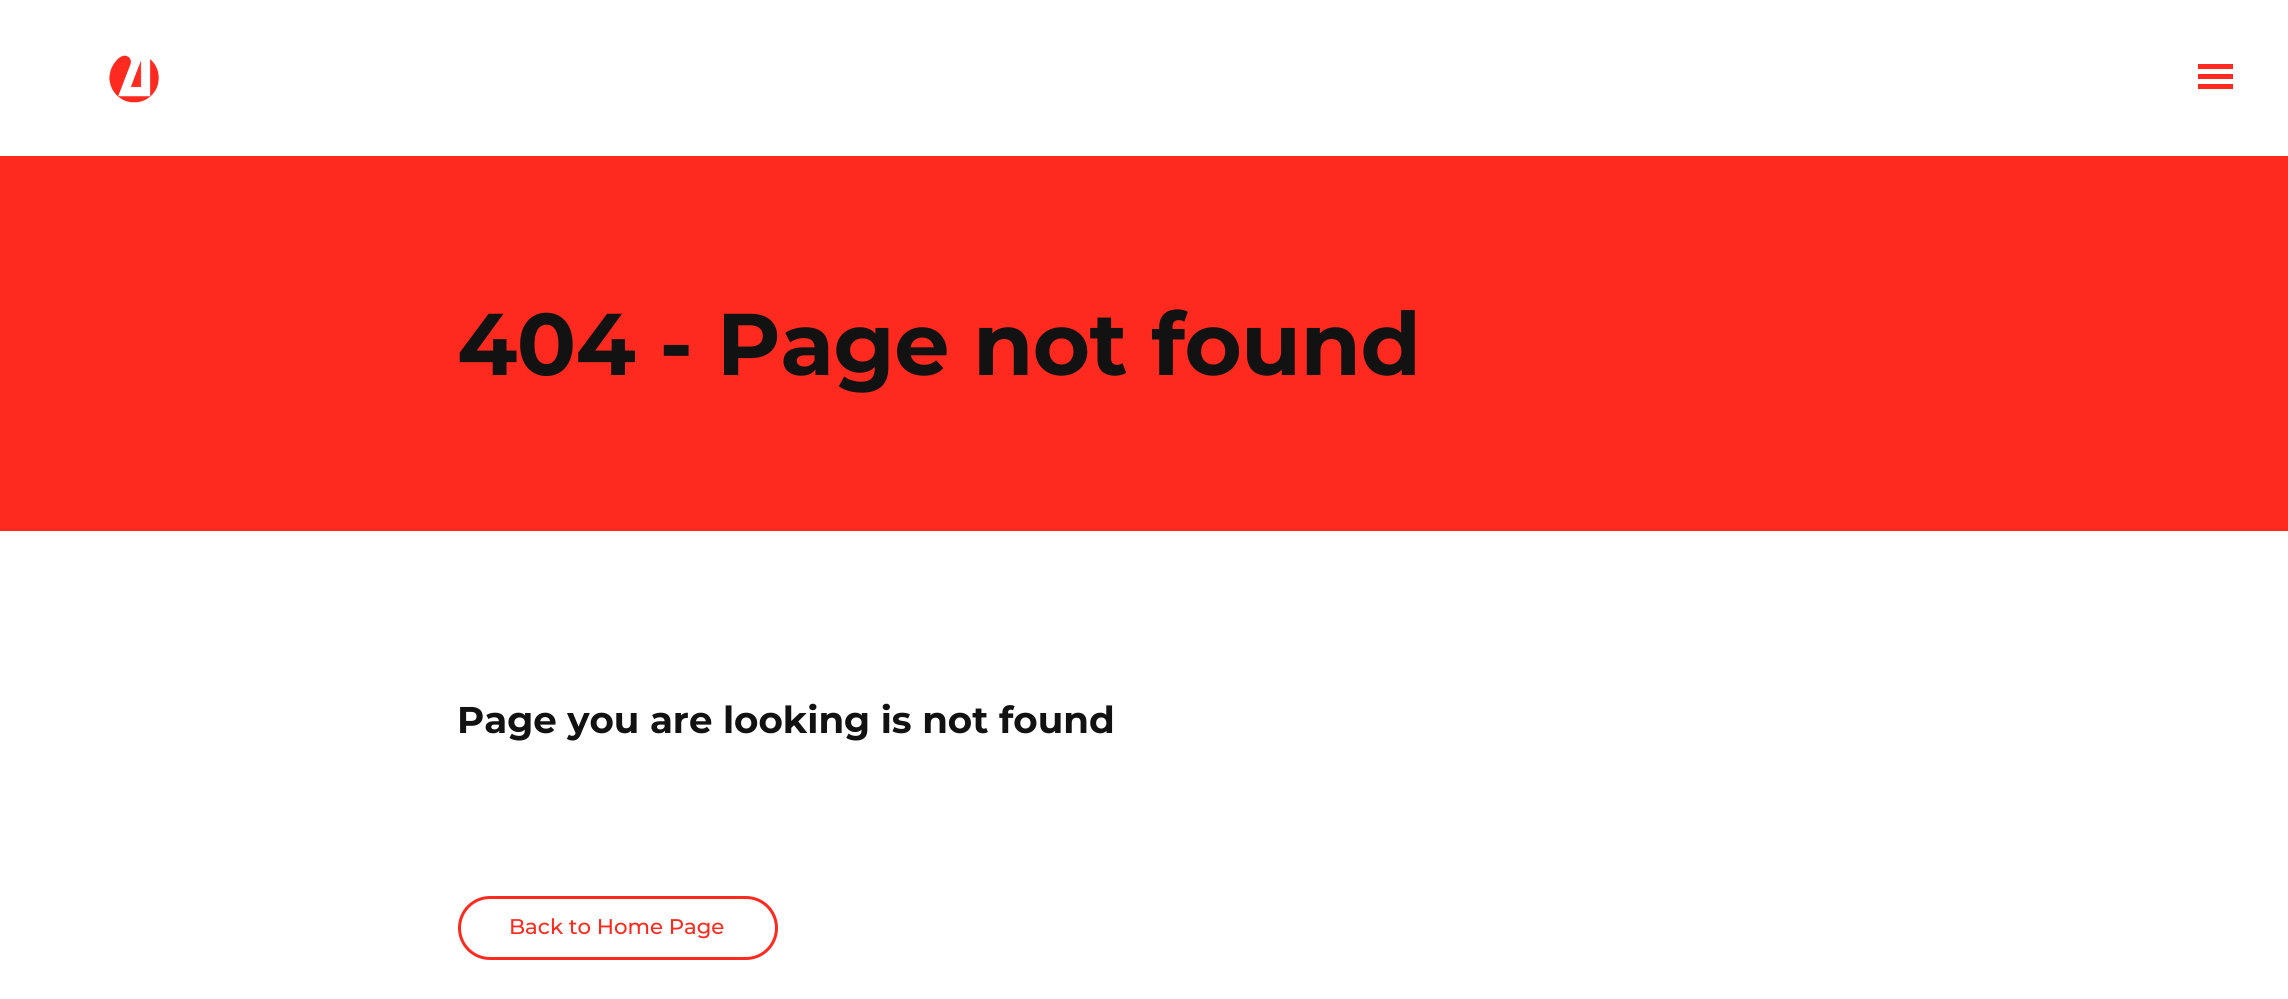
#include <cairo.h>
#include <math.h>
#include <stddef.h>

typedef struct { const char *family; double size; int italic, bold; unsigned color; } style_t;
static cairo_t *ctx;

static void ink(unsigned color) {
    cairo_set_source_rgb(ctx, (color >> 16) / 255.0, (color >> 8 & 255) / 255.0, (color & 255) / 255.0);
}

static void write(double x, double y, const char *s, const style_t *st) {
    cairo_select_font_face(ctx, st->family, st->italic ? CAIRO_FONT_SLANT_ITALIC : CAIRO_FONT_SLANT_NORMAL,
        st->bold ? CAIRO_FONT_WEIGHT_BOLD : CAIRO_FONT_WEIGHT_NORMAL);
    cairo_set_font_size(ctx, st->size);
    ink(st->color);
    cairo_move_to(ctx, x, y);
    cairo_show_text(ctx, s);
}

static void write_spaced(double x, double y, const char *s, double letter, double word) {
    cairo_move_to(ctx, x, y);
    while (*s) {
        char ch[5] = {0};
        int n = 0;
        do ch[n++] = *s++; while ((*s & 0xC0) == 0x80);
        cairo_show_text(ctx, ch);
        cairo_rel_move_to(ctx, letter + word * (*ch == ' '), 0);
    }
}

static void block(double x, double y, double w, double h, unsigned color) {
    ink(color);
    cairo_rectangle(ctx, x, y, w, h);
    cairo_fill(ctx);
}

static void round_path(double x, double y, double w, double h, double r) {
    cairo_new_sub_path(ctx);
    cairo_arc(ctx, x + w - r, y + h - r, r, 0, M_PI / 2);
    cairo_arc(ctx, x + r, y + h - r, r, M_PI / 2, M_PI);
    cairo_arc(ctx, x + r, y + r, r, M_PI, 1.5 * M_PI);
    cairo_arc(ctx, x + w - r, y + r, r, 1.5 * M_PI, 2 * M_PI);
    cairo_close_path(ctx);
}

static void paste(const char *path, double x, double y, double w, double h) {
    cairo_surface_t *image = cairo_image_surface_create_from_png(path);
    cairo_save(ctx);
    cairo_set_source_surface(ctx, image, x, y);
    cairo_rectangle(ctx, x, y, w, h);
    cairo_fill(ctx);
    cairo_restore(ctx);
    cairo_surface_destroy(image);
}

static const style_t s1 = {"Montserrat", 37.2, 0, 1, 0x121212};
static const style_t s2 = {"Montserrat Medium", 21.25, 0, 0, 0xff2a1f};

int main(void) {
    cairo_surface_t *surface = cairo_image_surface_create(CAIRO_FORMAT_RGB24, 2288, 999);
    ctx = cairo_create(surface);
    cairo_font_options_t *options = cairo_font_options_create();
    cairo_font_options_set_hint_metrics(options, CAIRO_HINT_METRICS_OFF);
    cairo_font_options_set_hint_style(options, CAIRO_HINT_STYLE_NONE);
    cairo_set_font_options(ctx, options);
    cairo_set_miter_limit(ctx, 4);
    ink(0xffffff);
    cairo_paint(ctx);
    paste("pic1.png", 109, 55, 50, 48);
    block(2198, 64, 35, 5, 0xff2a1f);
    block(2198, 74, 35, 5, 0xff2a1f);
    block(2198, 84, 35, 5, 0xff2a1f);
    block(0, 156, 2288, 375, 0xff2a1f);
    cairo_select_font_face(ctx, "Montserrat", CAIRO_FONT_SLANT_NORMAL, CAIRO_FONT_WEIGHT_BOLD);
    cairo_set_font_size(ctx, 87.5);
    ink(0x121212);
    write_spaced(457, 375, "404 - Page not found", -0.6, 0);
    write(457, 733, "Page you are looking is not found", &s1);
    round_path(459.5, 897.5, 317, 61, 30.5);
    ink(0xff2a1f);
    cairo_set_line_width(ctx, 3);
    cairo_stroke(ctx);
    write(509, 934, "Back to Home Page", &s2);
    cairo_surface_write_to_png(surface, "screenshot.png");
    cairo_font_options_destroy(options);
    cairo_destroy(ctx);
    cairo_surface_destroy(surface);
    return 0;
}
